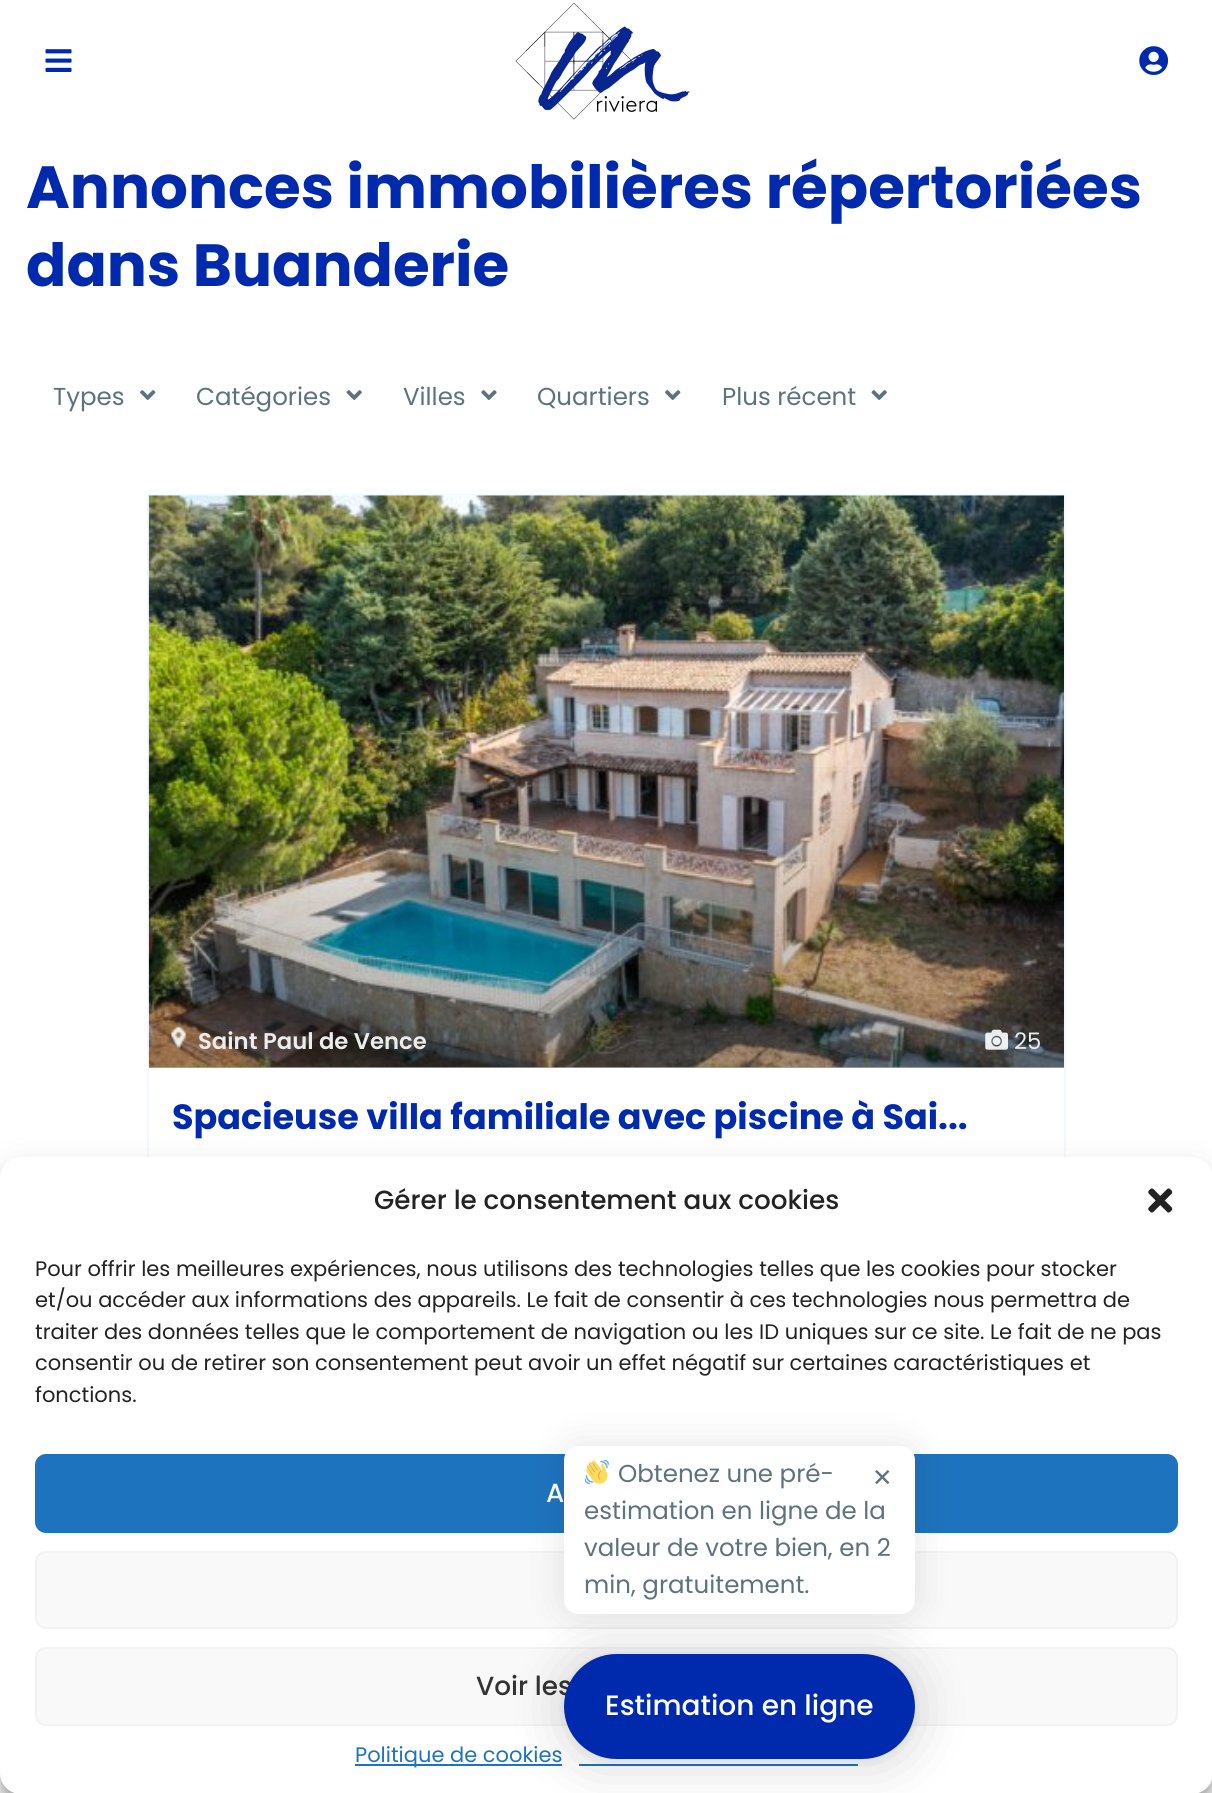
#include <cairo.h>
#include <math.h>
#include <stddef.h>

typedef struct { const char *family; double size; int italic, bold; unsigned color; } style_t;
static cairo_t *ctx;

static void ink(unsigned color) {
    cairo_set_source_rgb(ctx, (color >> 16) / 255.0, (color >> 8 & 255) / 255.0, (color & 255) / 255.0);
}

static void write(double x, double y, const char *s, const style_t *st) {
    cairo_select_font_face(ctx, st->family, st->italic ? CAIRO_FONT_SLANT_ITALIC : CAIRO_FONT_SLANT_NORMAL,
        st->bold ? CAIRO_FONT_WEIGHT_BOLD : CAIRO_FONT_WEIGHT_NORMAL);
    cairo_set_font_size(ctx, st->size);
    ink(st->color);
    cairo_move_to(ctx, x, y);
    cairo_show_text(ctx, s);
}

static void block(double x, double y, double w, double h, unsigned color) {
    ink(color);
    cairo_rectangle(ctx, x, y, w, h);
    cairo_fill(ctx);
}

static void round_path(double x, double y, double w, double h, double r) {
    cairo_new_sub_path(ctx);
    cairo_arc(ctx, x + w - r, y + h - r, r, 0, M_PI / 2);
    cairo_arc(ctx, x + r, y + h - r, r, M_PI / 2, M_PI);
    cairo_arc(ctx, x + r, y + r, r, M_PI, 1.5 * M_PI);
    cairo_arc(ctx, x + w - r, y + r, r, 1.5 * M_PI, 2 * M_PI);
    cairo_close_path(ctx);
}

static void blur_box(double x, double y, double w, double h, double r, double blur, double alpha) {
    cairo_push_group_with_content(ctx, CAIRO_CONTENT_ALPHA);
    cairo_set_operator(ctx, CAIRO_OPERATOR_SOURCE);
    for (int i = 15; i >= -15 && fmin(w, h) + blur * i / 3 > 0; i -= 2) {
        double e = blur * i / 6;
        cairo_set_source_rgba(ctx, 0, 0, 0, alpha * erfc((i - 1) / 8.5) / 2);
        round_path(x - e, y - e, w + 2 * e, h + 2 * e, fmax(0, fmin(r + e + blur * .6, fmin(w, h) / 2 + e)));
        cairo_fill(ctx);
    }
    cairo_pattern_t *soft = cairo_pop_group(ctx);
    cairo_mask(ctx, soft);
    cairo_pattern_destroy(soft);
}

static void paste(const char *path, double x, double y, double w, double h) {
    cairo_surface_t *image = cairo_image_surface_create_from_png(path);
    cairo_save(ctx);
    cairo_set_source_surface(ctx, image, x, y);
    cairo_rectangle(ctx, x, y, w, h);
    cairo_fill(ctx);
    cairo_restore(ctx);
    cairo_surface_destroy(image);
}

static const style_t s1 = {"Poppins", 59.5, 0, 1, 0x002aad};
static const style_t s2 = {"Poppins", 24.5, 0, 0, 0x5c727d};
static const style_t s3 = {"Poppins SemiBold", 22.75, 0, 0, 0xececed};
static const style_t s4 = {"Poppins", 22.75, 0, 0, 0xececed};
static const style_t s5 = {"Poppins", 35, 0, 1, 0x002aad};
static const style_t s6 = {"Poppins Medium", 26.25, 0, 0, 0x222222};
static const style_t s7 = {"Poppins", 21, 0, 0, 0x222222};
static const style_t s8 = {"Poppins Medium", 26.25, 0, 0, 0xffffff};
static const style_t s9 = {"Poppins Medium", 26.25, 0, 0, 0x333333};
static const style_t s10 = {"Poppins", 21, 0, 0, 0x1e73be};
static const style_t s11 = {"DejaVu Sans", 24.5, 0, 0, 0x5c727d};
static const style_t s12 = {"Poppins Medium", 28, 0, 0, 0xffffff};

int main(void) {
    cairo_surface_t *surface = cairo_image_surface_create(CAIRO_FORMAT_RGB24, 1212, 1793);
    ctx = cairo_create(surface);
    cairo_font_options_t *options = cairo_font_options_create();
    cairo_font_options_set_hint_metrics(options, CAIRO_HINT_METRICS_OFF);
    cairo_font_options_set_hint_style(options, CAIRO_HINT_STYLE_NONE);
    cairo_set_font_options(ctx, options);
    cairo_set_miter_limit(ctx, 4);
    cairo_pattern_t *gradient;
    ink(0xffffff);
    cairo_paint(ctx);
    paste("pic1.png", 45, 49, 27, 23);
    paste("pic2.png", 515, 2, 175, 118);
    paste("pic3.png", 1139, 46, 30, 29);
    write(26, 208, "Annonces immobilières répertoriées", &s1);
    write(26, 286, "dans Buanderie", &s1);
    write(53, 405, "Types", &s2);
    paste("pic4.png", 140, 390, 16, 10);
    write(196, 405, "Catégories", &s2);
    paste("pic5.png", 346, 390, 16, 10);
    write(403, 405, "Villes", &s2);
    paste("pic6.png", 481, 390, 16, 10);
    write(537, 405, "Quartiers", &s2);
    paste("pic4.png", 665, 390, 16, 10);
    write(722, 405, "Plus récent", &s2);
    paste("pic5.png", 871, 390, 16, 10);
    cairo_rectangle(ctx, 148, 495, 917, 986);
    ink(0xf1f8ff);
    cairo_stroke(ctx);
    block(149, 495, 915, 1, 0xffffff);
    paste("pic7.png", 148, 495, 916, 573);
    gradient = cairo_pattern_create_linear(606, 1068, 606, 495);
    cairo_pattern_add_color_stop_rgba(gradient, 0, 0, 0, 0, 0.34);
    cairo_pattern_add_color_stop_rgba(gradient, 0.56, 0, 0, 0, 0);
    cairo_set_source(ctx, gradient);
    cairo_pattern_destroy(gradient);
    cairo_rectangle(ctx, 149, 767, 915, 301);
    cairo_fill(ctx);
    paste("pic8.png", 171, 1026, 15, 23);
    write(198, 1049, "Saint Paul de Vence", &s3);
    paste("pic9.png", 985, 1029, 23, 21);
    write(1014, 1049, "25", &s4);
    write(172, 1129, "Spacieuse villa familiale avec piscine à Sai...", &s5);
    ink(0x000000);
    blur_box(0, 1167, 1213, 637, 21, 5, 0.23);
    blur_box(0, 1174, 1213, 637, 21, 17.5, 0.19);
    ink(0xffffff);
    round_path(0, 1157, 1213, 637, 21);
    cairo_fill(ctx);
    write(374, 1209, "Gérer le consentement aux cookies", &s6);
    paste("pic10.png", 1148, 1188, 25, 25);
    write(35, 1276, "Pour offrir les meilleures expériences, nous utilisons des technologies telles que les cookies pour stocker", &s7);
    write(35, 1307, "et/ou accéder aux informations des appareils. Le fait de consentir à ces technologies nous permettra de", &s7);
    write(35, 1339, "traiter des données telles que le comportement de navigation ou les ID uniques sur ce site. Le fait de ne pas", &s7);
    write(35, 1370, "consentir ou de retirer son consentement peut avoir un effet négatif sur certaines caractéristiques et", &s7);
    write(35, 1402, "fonctions.", &s7);
    ink(0x1e73be);
    round_path(36, 1455, 1141, 77, 10);
    cairo_fill_preserve(ctx);
    cairo_stroke(ctx);
    write(546, 1502, "A", &s8);
    ink(0xf9f9f9);
    round_path(36, 1552, 1141, 76, 10);
    cairo_fill_preserve(ctx);
    ink(0xf2f2f2);
    cairo_stroke(ctx);
    ink(0xf9f9f9);
    round_path(36, 1648, 1141, 77, 10);
    cairo_fill_preserve(ctx);
    ink(0xf2f2f2);
    cairo_stroke(ctx);
    write(476, 1695, "Voir les", &s9);
    block(355, 1764, 207, 2, 0x1e73be);
    write(355, 1762, "Politique de cookies", &s10);
    block(579, 1764, 279, 2, 0x1e73be);
    ink(0x000000);
    blur_box(564, 1657, 351, 105, 52.5, 28, 0.16);
    blur_box(564, 1656, 351, 105, 52.5, 5, 0.06);
    ink(0x002aad);
    round_path(564, 1654, 351, 105, 52.5);
    cairo_fill(ctx);
    ink(0x000000);
    blur_box(562, 1444, 355, 171, 16, 17.5, 0.1);
    ink(0xffffff);
    round_path(564, 1446, 351, 168, 14);
    cairo_fill(ctx);
    paste("pic11.png", 585, 1460, 24, 24);
    write(618, 1482, "Obtenez une pré-", &s2);
    write(584, 1519, "estimation en ligne de la", &s2);
    write(584, 1556, "valeur de votre bien, en 2", &s2);
    write(584, 1593, "min, gratuitement.", &s2);
    write(872, 1486, "✕", &s11);
    write(605, 1715, "Estimation en ligne", &s12);
    cairo_surface_write_to_png(surface, "screenshot.png");
    cairo_font_options_destroy(options);
    cairo_destroy(ctx);
    cairo_surface_destroy(surface);
    return 0;
}
